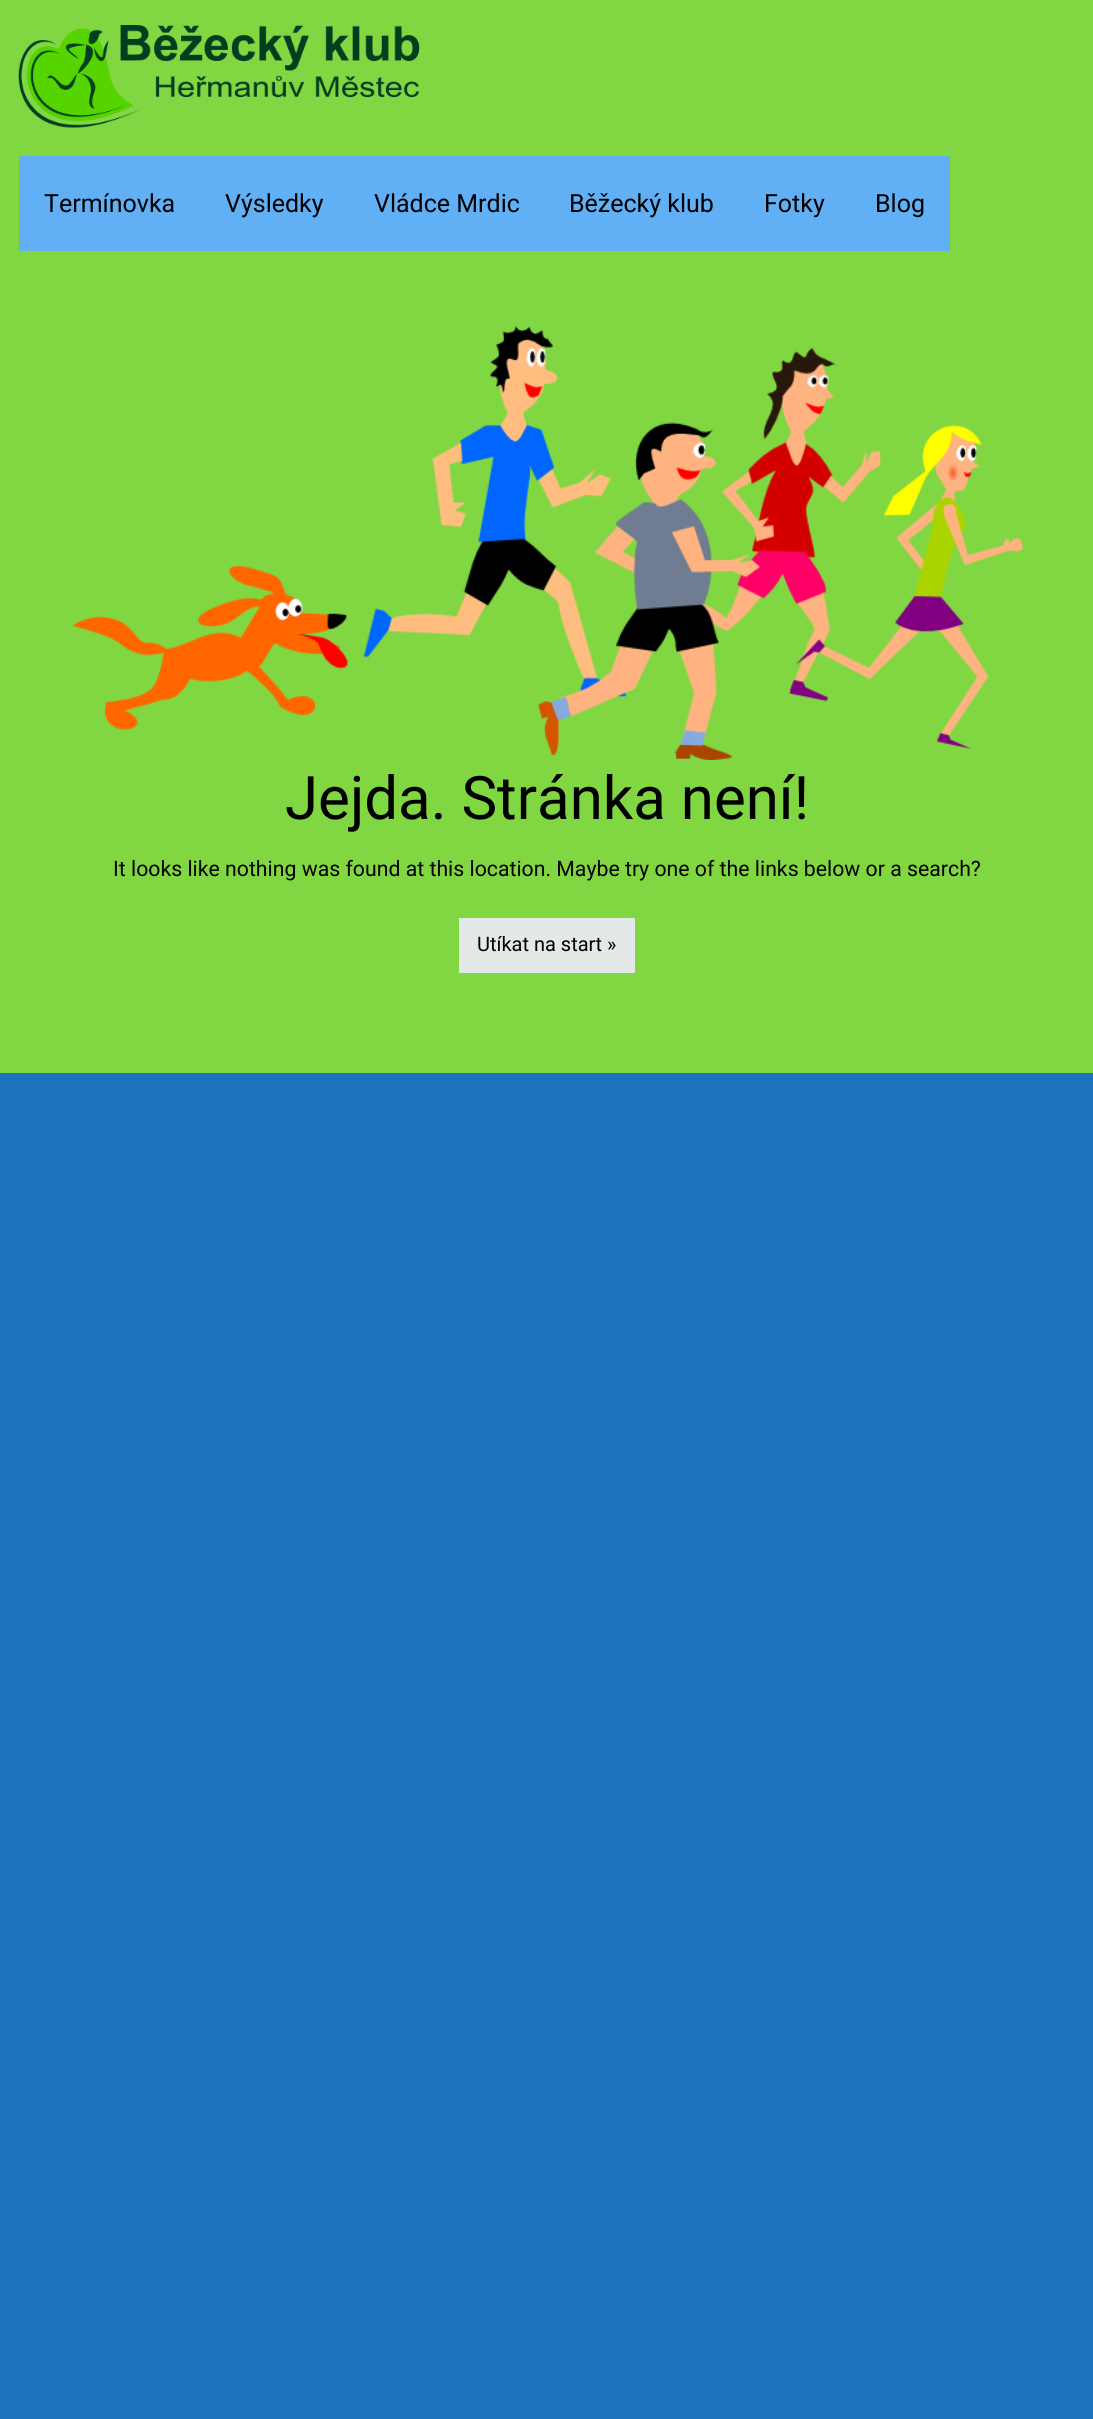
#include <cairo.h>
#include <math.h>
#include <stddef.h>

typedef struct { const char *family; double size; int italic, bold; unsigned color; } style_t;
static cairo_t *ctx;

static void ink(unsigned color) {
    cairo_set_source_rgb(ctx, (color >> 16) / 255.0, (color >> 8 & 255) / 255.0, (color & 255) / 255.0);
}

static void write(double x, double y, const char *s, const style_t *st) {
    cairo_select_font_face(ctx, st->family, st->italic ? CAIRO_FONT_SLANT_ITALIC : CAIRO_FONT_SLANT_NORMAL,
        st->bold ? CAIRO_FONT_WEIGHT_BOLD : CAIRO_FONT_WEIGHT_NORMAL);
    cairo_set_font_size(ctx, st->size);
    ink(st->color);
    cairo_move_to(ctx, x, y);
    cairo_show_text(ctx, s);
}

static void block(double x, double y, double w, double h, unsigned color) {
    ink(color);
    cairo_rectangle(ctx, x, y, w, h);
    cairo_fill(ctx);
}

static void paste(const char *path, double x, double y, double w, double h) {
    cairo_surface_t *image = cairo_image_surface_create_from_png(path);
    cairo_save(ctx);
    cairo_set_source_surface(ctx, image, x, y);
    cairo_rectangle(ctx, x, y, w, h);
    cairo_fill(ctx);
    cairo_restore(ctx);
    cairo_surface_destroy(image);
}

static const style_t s1 = {"Roboto", 25, 0, 0, 0x000000};
static const style_t s2 = {"Roboto", 60, 0, 0, 0x000000};
static const style_t s3 = {"Roboto", 21.25, 0, 0, 0x000000};
static const style_t s4 = {"Roboto", 20, 0, 0, 0x000000};

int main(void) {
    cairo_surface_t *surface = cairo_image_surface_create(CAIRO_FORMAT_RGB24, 1093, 2419);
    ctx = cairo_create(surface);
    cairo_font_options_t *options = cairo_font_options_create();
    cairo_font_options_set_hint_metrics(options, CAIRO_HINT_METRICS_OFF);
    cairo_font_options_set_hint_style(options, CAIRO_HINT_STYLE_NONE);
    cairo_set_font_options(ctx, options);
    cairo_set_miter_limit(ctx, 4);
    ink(0x1e73be);
    cairo_paint(ctx);
    block(0, 0, 1093, 1073, 0x81d742);
    paste("pic1.png", 18, 25, 402, 103);
    block(19, 156, 931, 95, 0x61aff4);
    write(44, 212, "Termínovka", &s1);
    write(225, 212, "Výsledky", &s1);
    write(374, 212, "Vládce Mrdic", &s1);
    write(569, 212, "Běžecký klub", &s1);
    write(764, 212, "Fotky", &s1);
    write(875, 212, "Blog", &s1);
    paste("pic2.png", 72, 326, 951, 434);
    write(285, 819, "Jejda. Stránka není!", &s2);
    write(113, 876, "It looks like nothing was found at this location. Maybe try one of the links below or a search?", &s3);
    block(459, 918, 176, 55, 0xe5e8e8);
    write(477, 951, "Utíkat na start »", &s4);
    cairo_surface_write_to_png(surface, "screenshot.png");
    cairo_font_options_destroy(options);
    cairo_destroy(ctx);
    cairo_surface_destroy(surface);
    return 0;
}
